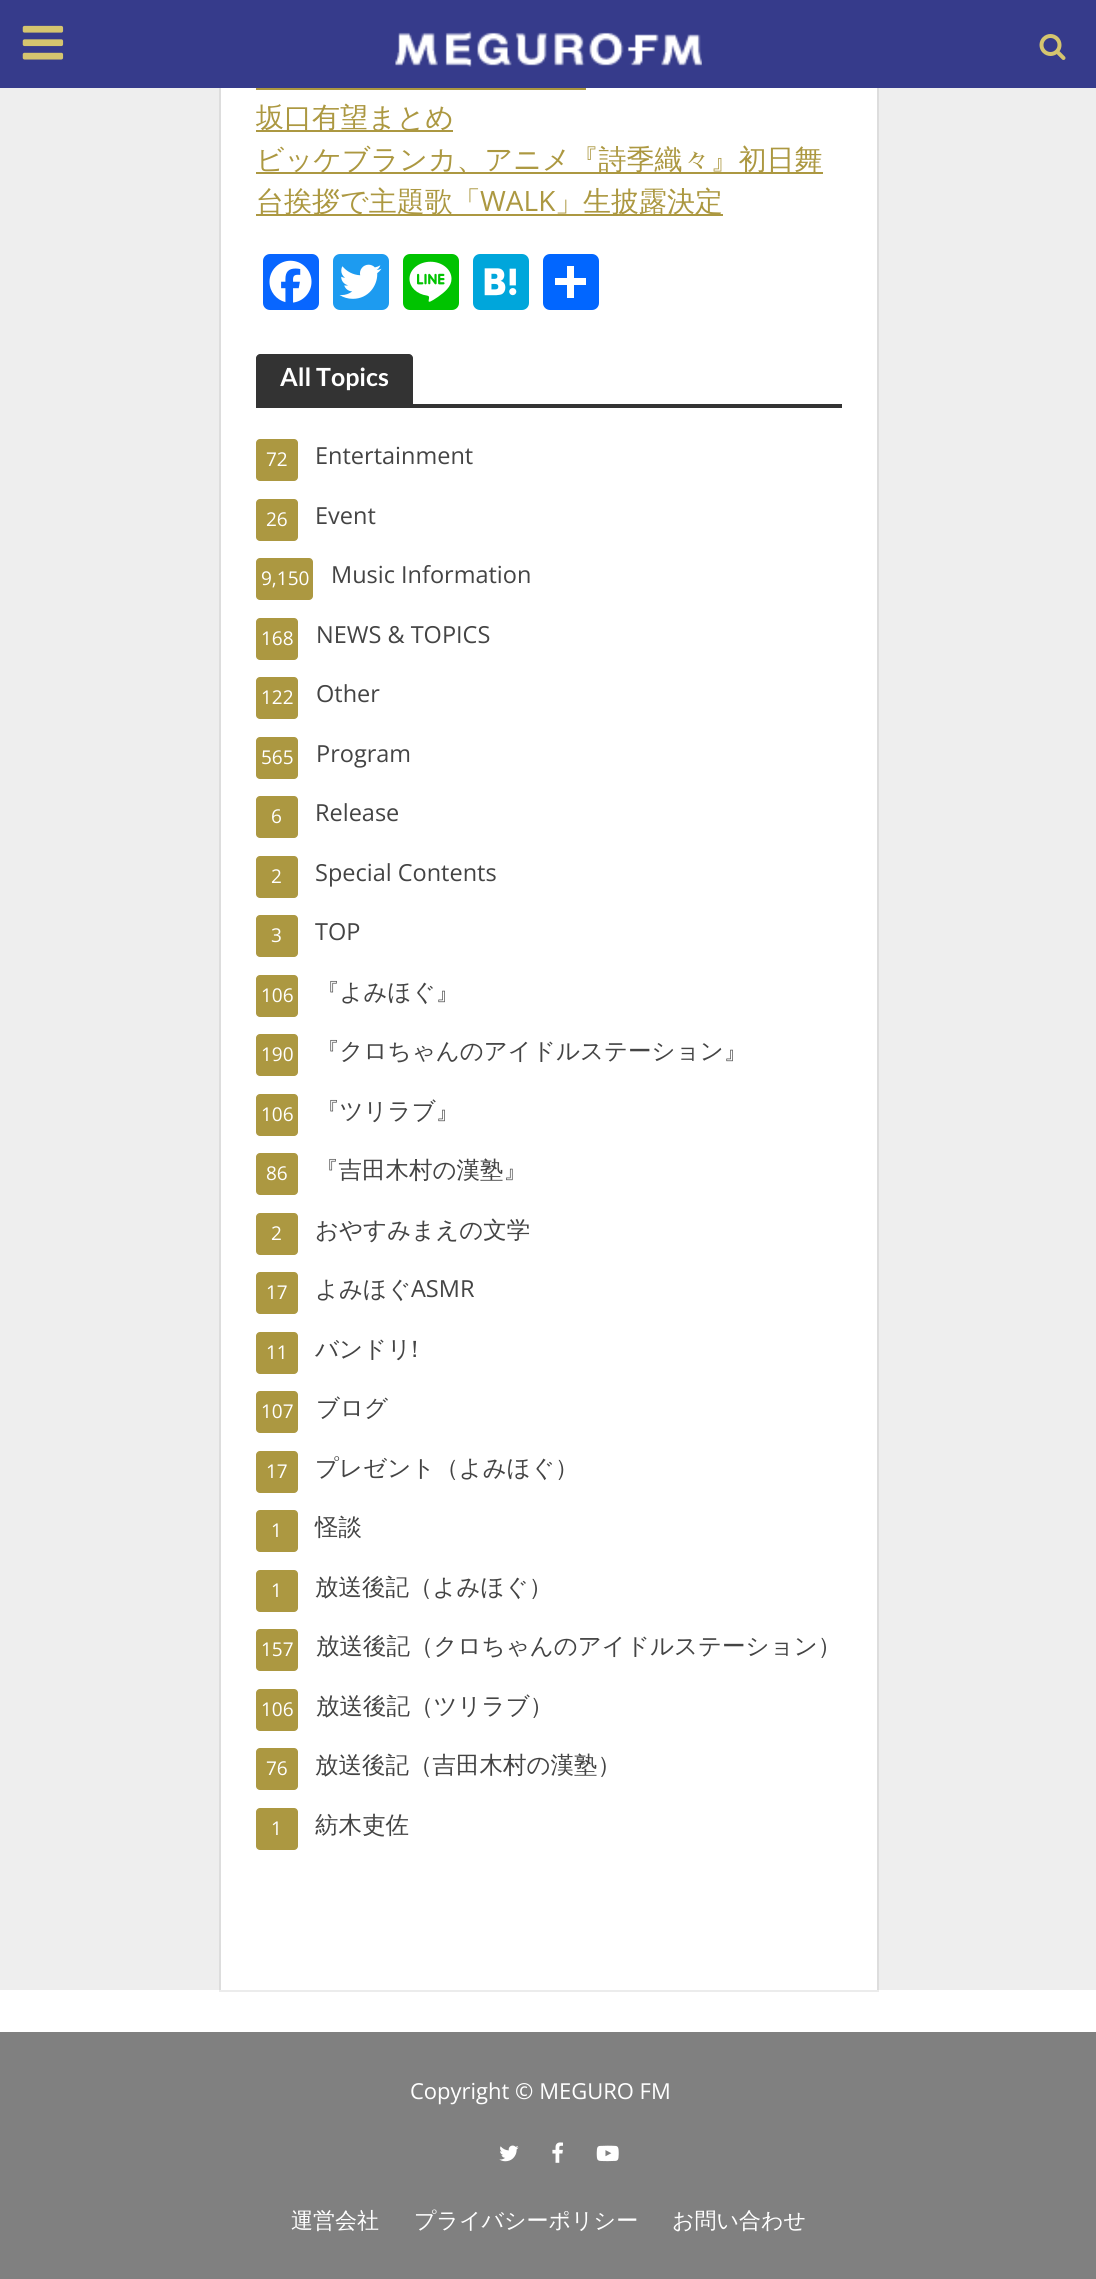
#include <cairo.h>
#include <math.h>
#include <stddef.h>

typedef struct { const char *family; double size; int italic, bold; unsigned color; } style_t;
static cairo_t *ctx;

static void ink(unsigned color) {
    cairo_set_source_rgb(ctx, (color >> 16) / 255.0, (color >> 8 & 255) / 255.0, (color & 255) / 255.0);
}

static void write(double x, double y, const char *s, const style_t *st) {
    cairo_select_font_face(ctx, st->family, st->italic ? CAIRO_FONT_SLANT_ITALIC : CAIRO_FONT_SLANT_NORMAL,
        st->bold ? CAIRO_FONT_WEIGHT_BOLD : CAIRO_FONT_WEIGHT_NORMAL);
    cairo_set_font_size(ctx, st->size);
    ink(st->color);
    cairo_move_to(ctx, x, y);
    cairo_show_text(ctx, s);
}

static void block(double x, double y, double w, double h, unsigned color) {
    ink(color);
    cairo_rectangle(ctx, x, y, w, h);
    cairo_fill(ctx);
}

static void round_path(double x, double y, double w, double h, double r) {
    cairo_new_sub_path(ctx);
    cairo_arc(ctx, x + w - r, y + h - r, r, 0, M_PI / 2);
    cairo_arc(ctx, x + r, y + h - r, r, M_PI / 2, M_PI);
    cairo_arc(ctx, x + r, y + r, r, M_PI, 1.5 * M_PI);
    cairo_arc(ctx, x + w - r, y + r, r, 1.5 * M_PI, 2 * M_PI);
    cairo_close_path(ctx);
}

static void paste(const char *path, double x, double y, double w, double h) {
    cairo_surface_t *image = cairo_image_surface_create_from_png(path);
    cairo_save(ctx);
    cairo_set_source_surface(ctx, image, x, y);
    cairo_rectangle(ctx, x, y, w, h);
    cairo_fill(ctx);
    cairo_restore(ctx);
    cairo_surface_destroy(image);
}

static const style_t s1 = {"WenQuanYi Zen Hei Medium", 28, 0, 0, 0xac9841};
static const style_t s2 = {"Open Sans", 28, 0, 0, 0xac9841};
static const style_t s3 = {"Lato", 25, 0, 1, 0xffffff};
static const style_t s4 = {"Open Sans", 19, 0, 0, 0xffffff};
static const style_t s5 = {"Open Sans", 23.5, 0, 0, 0x444444};
static const style_t s6 = {"WenQuanYi Zen Hei Medium", 23.5, 0, 0, 0x444444};
static const style_t s7 = {"Open Sans", 22, 0, 0, 0xffffff};
static const style_t s8 = {"WenQuanYi Zen Hei Medium", 22, 0, 0, 0xffffff};

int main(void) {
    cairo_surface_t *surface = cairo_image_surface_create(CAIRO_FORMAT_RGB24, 1096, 2279);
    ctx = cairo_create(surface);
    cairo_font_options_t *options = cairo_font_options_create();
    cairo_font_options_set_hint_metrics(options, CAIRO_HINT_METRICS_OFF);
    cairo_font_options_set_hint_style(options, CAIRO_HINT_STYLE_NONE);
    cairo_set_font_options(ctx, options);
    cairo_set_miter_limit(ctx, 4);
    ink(0xeeeeee);
    cairo_paint(ctx);
    block(0, 1990, 1096, 42, 0xffffff);
    cairo_rectangle(ctx, 220, -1, 658, 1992);
    cairo_set_source_rgba(ctx, 0.267, 0.267, 0.267, 0.1);
    cairo_stroke(ctx);
    block(0, 0, 1096, 88, 0x363b8b);
    paste("pic1.png", 22, 25, 42, 35);
    paste("pic2.png", 395, 31, 307, 36);
    paste("pic3.png", 1039, 34, 27, 26);
    block(221, 88, 656, 1902, 0xffffff);
    block(256, 88, 330, 2, 0xac9841);
    block(256, 130, 197, 2, 0xac9841);
    write(256, 127, "坂口有望まとめ", &s1);
    block(256, 172, 567, 2, 0xac9841);
    write(256, 169, "ビッケブランカ、アニメ『詩季織々』初日舞", &s1);
    block(256, 214, 467, 2, 0xac9841);
    write(256, 211, "台挨拶で主題歌「", &s1);
    write(480, 211, "WALK", &s2);
    write(555, 211, "」生披露決定", &s1);
    ink(0x0866ff);
    round_path(263, 254, 56, 56, 7);
    cairo_fill(ctx);
    paste("pic4.png", 269, 260, 43, 43);
    ink(0x1d9bf0);
    round_path(333, 254, 56, 56, 7);
    cairo_fill(ctx);
    paste("pic5.png", 339, 264, 43, 35);
    ink(0x00c300);
    round_path(403, 254, 56, 56, 7);
    cairo_fill(ctx);
    paste("pic6.png", 409, 261, 43, 41);
    ink(0x00a6db);
    round_path(473, 254, 56, 56, 7);
    cairo_fill(ctx);
    paste("pic7.png", 484, 268, 33, 28);
    ink(0x0166ff);
    round_path(543, 254, 56, 56, 7);
    cairo_fill(ctx);
    block(567, 266, 7, 32, 0xffffff);
    block(555, 278, 31, 7, 0xffffff);
    ink(0x333333);
    cairo_new_path(ctx);
    cairo_move_to(ctx, 260, 354);
    cairo_line_to(ctx, 409, 354);
    cairo_curve_to(ctx, 411, 354, 413, 356, 413, 358);
    cairo_line_to(ctx, 413, 404);
    cairo_line_to(ctx, 256, 404);
    cairo_line_to(ctx, 256, 358);
    cairo_curve_to(ctx, 256, 356, 258, 354, 260, 354);
    cairo_close_path(ctx);
    cairo_fill(ctx);
    write(280, 386, "All Topics", &s3);
    block(256, 404, 586, 4, 0x333333);
    ink(0xac9841);
    round_path(256, 439, 42, 42, 4);
    cairo_fill(ctx);
    write(266, 466, "72", &s4);
    write(315, 464, "Entertainment", &s5);
    ink(0xac9841);
    round_path(256, 499, 42, 42, 4);
    cairo_fill(ctx);
    write(266, 526, "26", &s4);
    write(315, 524, "Event", &s5);
    ink(0xac9841);
    round_path(256, 558, 57, 42, 4);
    cairo_fill(ctx);
    write(261, 585, "9,150", &s4);
    write(331, 583, "Music Information", &s5);
    ink(0xac9841);
    round_path(256, 618, 42, 42, 4);
    cairo_fill(ctx);
    write(261, 645, "168", &s4);
    write(316, 643, "NEWS & TOPICS", &s5);
    ink(0xac9841);
    round_path(256, 677, 42, 42, 4);
    cairo_fill(ctx);
    write(261, 704, "122", &s4);
    write(316, 702, "Other", &s5);
    ink(0xac9841);
    round_path(256, 737, 42, 42, 4);
    cairo_fill(ctx);
    write(261, 764, "565", &s4);
    write(316, 762, "Program", &s5);
    ink(0xac9841);
    round_path(256, 796, 42, 42, 4);
    cairo_fill(ctx);
    write(271, 823, "6", &s4);
    write(315, 821, "Release", &s5);
    ink(0xac9841);
    round_path(256, 856, 42, 42, 4);
    cairo_fill(ctx);
    write(271, 883, "2", &s4);
    write(315, 881, "Special Contents", &s5);
    ink(0xac9841);
    round_path(256, 915, 42, 42, 4);
    cairo_fill(ctx);
    write(271, 942, "3", &s4);
    write(315, 940, "TOP", &s5);
    ink(0xac9841);
    round_path(256, 975, 42, 42, 4);
    cairo_fill(ctx);
    write(261, 1002, "106", &s4);
    write(316, 1000, "『よみほぐ』", &s6);
    ink(0xac9841);
    round_path(256, 1034, 42, 42, 4);
    cairo_fill(ctx);
    write(261, 1061, "190", &s4);
    write(316, 1059, "『クロちゃんのアイドルステーション』", &s6);
    ink(0xac9841);
    round_path(256, 1094, 42, 42, 4);
    cairo_fill(ctx);
    write(261, 1121, "106", &s4);
    write(316, 1119, "『ツリラブ』", &s6);
    ink(0xac9841);
    round_path(256, 1153, 42, 42, 4);
    cairo_fill(ctx);
    write(266, 1180, "86", &s4);
    write(315, 1178, "『吉田木村の漢塾』", &s6);
    ink(0xac9841);
    round_path(256, 1213, 42, 42, 4);
    cairo_fill(ctx);
    write(271, 1240, "2", &s4);
    write(315, 1238, "おやすみまえの文学", &s6);
    ink(0xac9841);
    round_path(256, 1272, 42, 42, 4);
    cairo_fill(ctx);
    write(266, 1299, "17", &s4);
    write(315, 1297, "よみほぐ", &s6);
    write(411, 1297, "ASMR", &s5);
    ink(0xac9841);
    round_path(256, 1332, 42, 42, 4);
    cairo_fill(ctx);
    write(266, 1359, "11", &s4);
    write(315, 1357, "バンドリ!", &s6);
    ink(0xac9841);
    round_path(256, 1391, 42, 42, 4);
    cairo_fill(ctx);
    write(261, 1418, "107", &s4);
    write(316, 1416, "ブログ", &s6);
    ink(0xac9841);
    round_path(256, 1451, 42, 42, 4);
    cairo_fill(ctx);
    write(266, 1478, "17", &s4);
    write(315, 1476, "プレゼント（よみほぐ）", &s6);
    ink(0xac9841);
    round_path(256, 1510, 42, 42, 4);
    cairo_fill(ctx);
    write(271, 1537, "1", &s4);
    write(315, 1535, "怪談", &s6);
    ink(0xac9841);
    round_path(256, 1570, 42, 42, 4);
    cairo_fill(ctx);
    write(271, 1597, "1", &s4);
    write(315, 1595, "放送後記（よみほぐ）", &s6);
    ink(0xac9841);
    round_path(256, 1629, 42, 42, 4);
    cairo_fill(ctx);
    write(261, 1656, "157", &s4);
    write(316, 1654, "放送後記（クロちゃんのアイドルステーション）", &s6);
    ink(0xac9841);
    round_path(256, 1689, 42, 42, 4);
    cairo_fill(ctx);
    write(261, 1716, "106", &s4);
    write(316, 1714, "放送後記（ツリラブ）", &s6);
    ink(0xac9841);
    round_path(256, 1748, 42, 42, 4);
    cairo_fill(ctx);
    write(266, 1775, "76", &s4);
    write(315, 1773, "放送後記（吉田木村の漢塾）", &s6);
    ink(0xac9841);
    round_path(256, 1808, 42, 42, 4);
    cairo_fill(ctx);
    write(271, 1835, "1", &s4);
    write(315, 1833, "紡木吏佐", &s6);
    block(0, 2032, 1096, 247, 0x808080);
    write(410, 2099, "Copyright © MEGURO FM", &s7);
    paste("pic8.png", 499, 2145, 20, 17);
    paste("pic9.png", 552, 2142, 11, 21);
    paste("pic10.png", 596, 2145, 23, 17);
    write(291, 2228, "運営会社", &s8);
    write(414, 2228, "プライバシーポリシー", &s8);
    write(672, 2228, "お問い合わせ", &s8);
    cairo_surface_write_to_png(surface, "screenshot.png");
    cairo_font_options_destroy(options);
    cairo_destroy(ctx);
    cairo_surface_destroy(surface);
    return 0;
}
